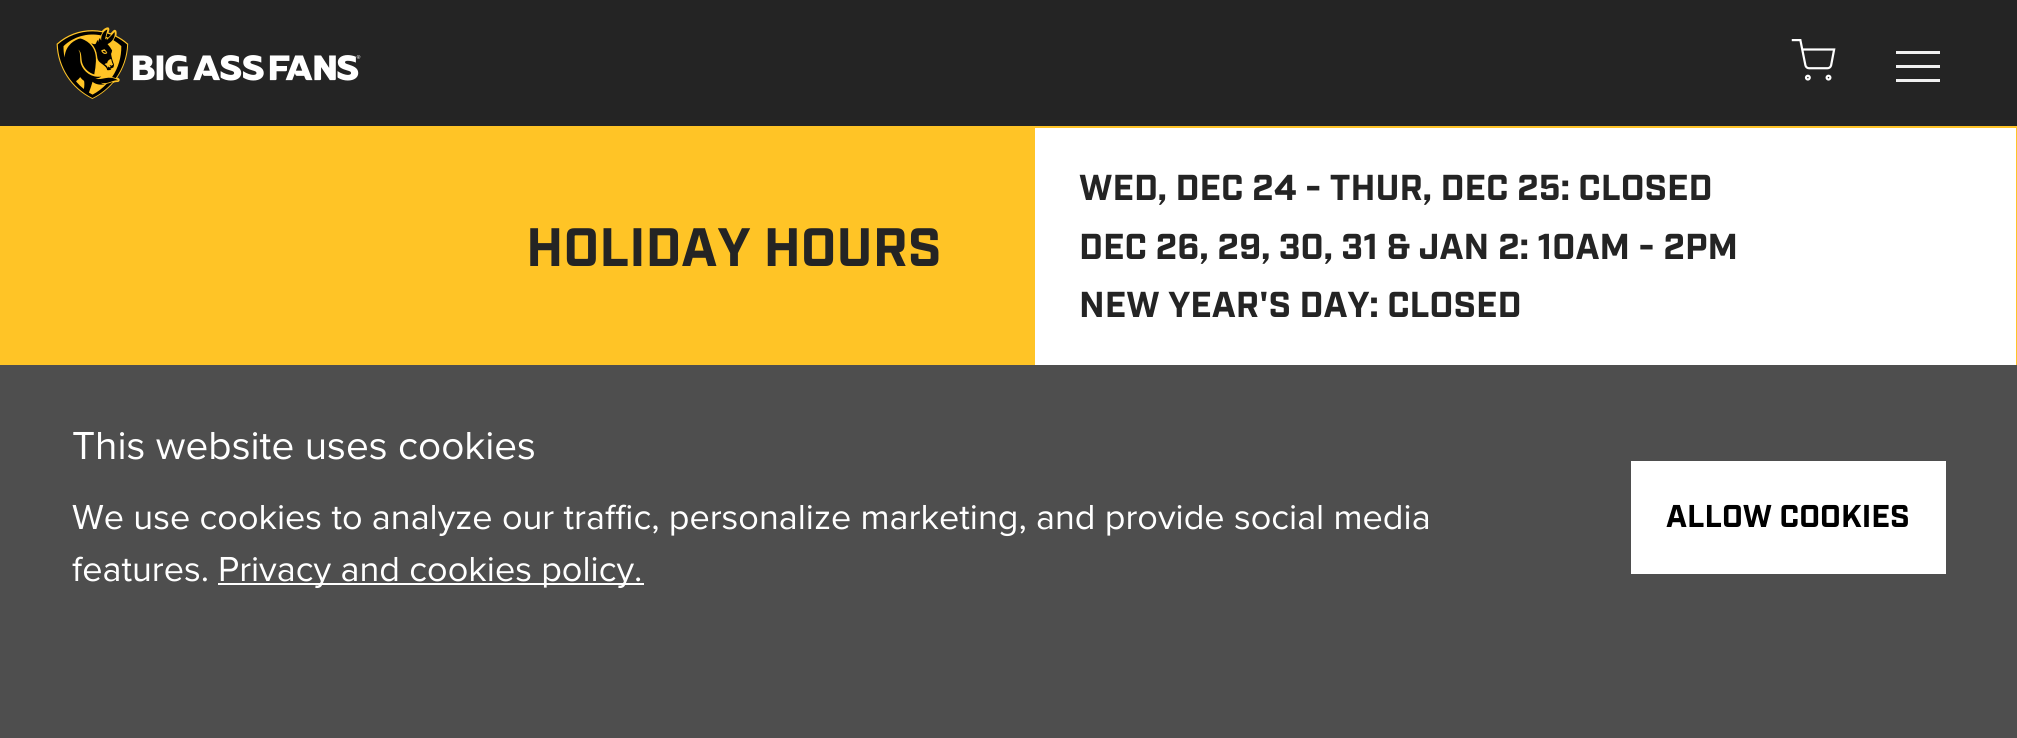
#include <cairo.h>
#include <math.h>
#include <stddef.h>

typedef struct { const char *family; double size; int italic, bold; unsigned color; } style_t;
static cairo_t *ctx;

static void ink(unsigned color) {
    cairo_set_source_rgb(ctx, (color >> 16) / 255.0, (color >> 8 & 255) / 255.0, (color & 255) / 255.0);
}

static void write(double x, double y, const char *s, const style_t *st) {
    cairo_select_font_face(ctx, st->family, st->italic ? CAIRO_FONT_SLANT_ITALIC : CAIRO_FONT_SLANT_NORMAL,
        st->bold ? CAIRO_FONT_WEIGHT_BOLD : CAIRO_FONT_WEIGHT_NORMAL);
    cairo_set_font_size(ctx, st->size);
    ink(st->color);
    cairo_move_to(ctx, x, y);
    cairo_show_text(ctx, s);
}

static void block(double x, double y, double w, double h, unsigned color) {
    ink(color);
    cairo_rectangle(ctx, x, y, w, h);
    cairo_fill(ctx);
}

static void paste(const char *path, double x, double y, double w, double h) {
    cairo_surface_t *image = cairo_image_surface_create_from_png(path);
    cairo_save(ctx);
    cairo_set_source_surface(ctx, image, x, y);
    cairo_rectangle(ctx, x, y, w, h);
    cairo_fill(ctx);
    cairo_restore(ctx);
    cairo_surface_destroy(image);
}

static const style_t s1 = {"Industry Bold", 54, 0, 1, 0x242424};
static const style_t s2 = {"Industry Bold", 36, 0, 1, 0x242424};
static const style_t s3 = {"Proxima Nova", 40.5, 0, 0, 0xffffff};
static const style_t s4 = {"Proxima Nova", 36, 0, 0, 0xffffff};
static const style_t s5 = {"Industry Bold", 31.5, 0, 1, 0x000000};

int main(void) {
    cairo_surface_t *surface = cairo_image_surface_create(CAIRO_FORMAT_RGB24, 2017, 738);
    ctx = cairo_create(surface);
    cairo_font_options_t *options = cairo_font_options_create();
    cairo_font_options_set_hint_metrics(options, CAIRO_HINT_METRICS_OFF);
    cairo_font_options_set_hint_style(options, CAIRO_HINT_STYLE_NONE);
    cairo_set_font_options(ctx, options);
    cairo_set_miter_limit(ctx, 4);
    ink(0xffc426);
    cairo_paint(ctx);
    block(0, 0, 2017, 126, 0x242424);
    paste("pic1.png", 56, 27, 305, 72);
    paste("pic2.png", 1791, 39, 45, 42);
    block(1896, 65, 44, 3, 0xf0f0f0);
    block(1896, 51, 44, 3, 0xf0f0f0);
    block(1896, 79, 44, 3, 0xf0f0f0);
    write(526, 266, "HOLIDAY HOURS", &s1);
    block(1035, 128, 981, 237, 0xffffff);
    write(1079, 200, "WED, DEC 24 - THUR, DEC 25: CLOSED", &s2);
    write(1079, 259, "DEC 26, 29, 30, 31 & JAN 2: 10AM - 2PM", &s2);
    write(1079, 317, "NEW YEAR'S DAY: CLOSED", &s2);
    block(0, 365, 2017, 373, 0x4e4e4e);
    write(72, 459, "This website uses cookies", &s3);
    write(72, 529, "We use cookies to analyze our traffic, personalize marketing, and provide social media", &s4);
    write(72, 581, "features.", &s4);
    block(218, 583, 426, 2, 0xffffff);
    write(218, 581, "Privacy and cookies policy.", &s4);
    block(1631, 461, 315, 113, 0xffffff);
    write(1666, 527, "ALLOW COOKIES", &s5);
    cairo_surface_write_to_png(surface, "screenshot.png");
    cairo_font_options_destroy(options);
    cairo_destroy(ctx);
    cairo_surface_destroy(surface);
    return 0;
}
